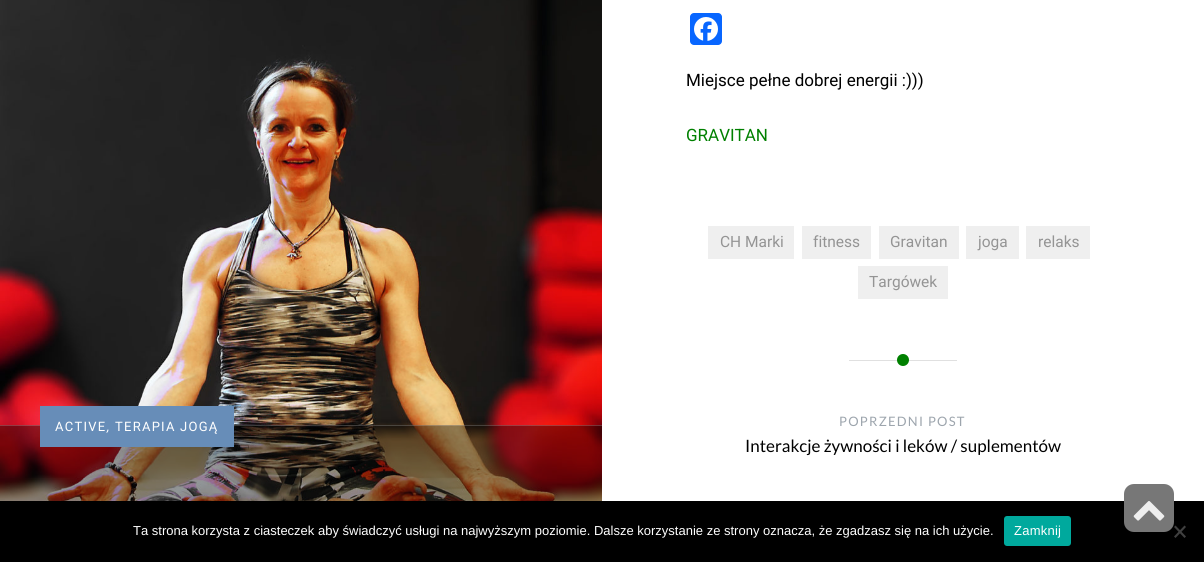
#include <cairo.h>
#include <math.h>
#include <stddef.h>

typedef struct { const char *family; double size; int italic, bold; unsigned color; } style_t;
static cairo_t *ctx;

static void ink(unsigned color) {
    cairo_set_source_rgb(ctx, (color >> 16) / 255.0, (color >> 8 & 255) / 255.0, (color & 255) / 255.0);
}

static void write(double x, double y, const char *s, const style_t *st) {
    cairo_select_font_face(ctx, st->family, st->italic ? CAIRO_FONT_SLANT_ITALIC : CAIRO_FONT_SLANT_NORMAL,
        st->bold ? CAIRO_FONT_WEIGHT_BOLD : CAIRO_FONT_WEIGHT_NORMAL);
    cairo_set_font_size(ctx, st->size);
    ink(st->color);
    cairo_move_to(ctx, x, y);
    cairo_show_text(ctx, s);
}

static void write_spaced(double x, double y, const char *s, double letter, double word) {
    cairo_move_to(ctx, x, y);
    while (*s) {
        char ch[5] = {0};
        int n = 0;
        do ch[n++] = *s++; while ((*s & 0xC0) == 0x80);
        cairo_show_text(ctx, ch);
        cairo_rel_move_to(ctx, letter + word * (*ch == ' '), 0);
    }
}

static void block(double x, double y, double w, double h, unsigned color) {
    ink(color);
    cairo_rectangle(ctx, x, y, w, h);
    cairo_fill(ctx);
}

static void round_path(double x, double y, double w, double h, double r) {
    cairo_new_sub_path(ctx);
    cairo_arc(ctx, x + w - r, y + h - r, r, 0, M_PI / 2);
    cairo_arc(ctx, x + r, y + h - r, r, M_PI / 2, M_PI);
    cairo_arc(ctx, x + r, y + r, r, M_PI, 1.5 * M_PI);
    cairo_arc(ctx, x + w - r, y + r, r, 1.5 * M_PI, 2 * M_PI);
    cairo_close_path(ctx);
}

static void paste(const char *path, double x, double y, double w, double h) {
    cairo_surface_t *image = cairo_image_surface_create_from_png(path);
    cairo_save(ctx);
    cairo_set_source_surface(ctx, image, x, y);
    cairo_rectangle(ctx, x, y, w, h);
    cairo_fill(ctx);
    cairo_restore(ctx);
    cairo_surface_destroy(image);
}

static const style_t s1 = {"Roboto", 17, 0, 0, 0x000000};
static const style_t s2 = {"Roboto", 17, 0, 0, 0x008000};
static const style_t s3 = {"Roboto", 15.5, 0, 0, 0x949494};
static const style_t s4 = {"Lato", 17, 0, 0, 0x000000};
static const style_t s5 = {"Liberation Sans", 13, 0, 0, 0xffffff};

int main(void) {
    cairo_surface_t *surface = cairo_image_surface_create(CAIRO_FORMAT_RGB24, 1204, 562);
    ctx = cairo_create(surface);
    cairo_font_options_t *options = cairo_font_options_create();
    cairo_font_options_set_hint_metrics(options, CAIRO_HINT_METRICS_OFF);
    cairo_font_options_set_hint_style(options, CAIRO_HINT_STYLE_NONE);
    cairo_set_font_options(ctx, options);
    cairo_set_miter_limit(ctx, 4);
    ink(0xffffff);
    cairo_paint(ctx);
    paste("pic1.png", 0, 0, 602, 501);
    ink(0x0866ff);
    round_path(690, 13, 32, 32, 4);
    cairo_fill(ctx);
    paste("pic2.png", 694, 17, 24, 24);
    write(686, 86, "Miejsce pełne dobrej energii :)))", &s1);
    write(686, 141, "GRAVITAN", &s2);
    block(708, 226, 86, 33, 0xefefef);
    write(720, 247, "CH Marki", &s3);
    block(802, 226, 69, 33, 0xefefef);
    write(813, 247, "fitness", &s3);
    block(879, 226, 80, 33, 0xefefef);
    write(890, 247, "Gravitan", &s3);
    block(966, 226, 53, 33, 0xefefef);
    write(978, 247, "joga", &s3);
    block(1026, 226, 64, 33, 0xefefef);
    write(1038, 247, "relaks", &s3);
    block(858, 266, 90, 33, 0xefefef);
    write(869, 287, "Targówek", &s3);
    cairo_set_source_rgba(ctx, 0, 0, 0, 0.4);
    cairo_rectangle(ctx, 0, 425, 602, 76);
    cairo_fill(ctx);
    cairo_set_source_rgba(ctx, 1, 1, 1, 0.2);
    cairo_rectangle(ctx, 0, 425, 602, 1);
    cairo_fill(ctx);
    block(40, 406, 194, 41, 0x678db8);
    cairo_set_font_size(ctx, 13);
    ink(0xffffff);
    write_spaced(55, 431, "ACTIVE", 1.25, 0);
    cairo_select_font_face(ctx, "Roboto", CAIRO_FONT_SLANT_ITALIC, CAIRO_FONT_WEIGHT_NORMAL);
    write_spaced(107, 431, ",", 1.25, 0);
    cairo_select_font_face(ctx, "Roboto", CAIRO_FONT_SLANT_NORMAL, CAIRO_FONT_WEIGHT_NORMAL);
    write_spaced(115, 431, "TERAPIA JOGĄ", 1.25, 0);
    block(849, 360, 108, 1, 0xe0e0e0);
    ink(0x008000);
    cairo_new_path(ctx);
    cairo_arc(ctx, 903, 360, 6, 0, 2 * M_PI);
    cairo_fill(ctx);
    cairo_select_font_face(ctx, "Lato", CAIRO_FONT_SLANT_NORMAL, CAIRO_FONT_WEIGHT_NORMAL);
    ink(0x9da5ad);
    write_spaced(839, 426, "POPRZEDNI POST", 1.25, 0);
    write(745, 452, "Interakcje żywności i leków / suplementów", &s4);
    block(0, 501, 1204, 61, 0x000000);
    write(133, 535, "Ta strona korzysta z ciasteczek aby świadczyć usługi na najwyższym poziomie. Dalsze korzystanie ze strony oznacza, że zgadzasz się na ich użycie.", &s5);
    ink(0x00a99d);
    round_path(1004, 516, 67, 30, 3);
    cairo_fill(ctx);
    ink(0xffffff);
    write_spaced(1014, 535, "Zamknij", 0.25, 0);
    ink(0x404040);
    cairo_new_path(ctx);
    cairo_move_to(ctx, 1184.5, 525.5);
    cairo_line_to(ctx, 1186, 527);
    cairo_line_to(ctx, 1175.5, 538);
    cairo_line_to(ctx, 1174, 536.5);
    cairo_close_path(ctx);
    cairo_fill(ctx);
    cairo_new_path(ctx);
    cairo_move_to(ctx, 1174, 527);
    cairo_line_to(ctx, 1175.5, 525.5);
    cairo_line_to(ctx, 1186, 536.5);
    cairo_line_to(ctx, 1184.5, 538);
    cairo_close_path(ctx);
    cairo_fill(ctx);
    ink(0x777777);
    round_path(1124, 484, 50, 48, 10);
    cairo_fill(ctx);
    paste("pic3.png", 1133, 501, 32, 20);
    cairo_surface_write_to_png(surface, "screenshot.png");
    cairo_font_options_destroy(options);
    cairo_destroy(ctx);
    cairo_surface_destroy(surface);
    return 0;
}
